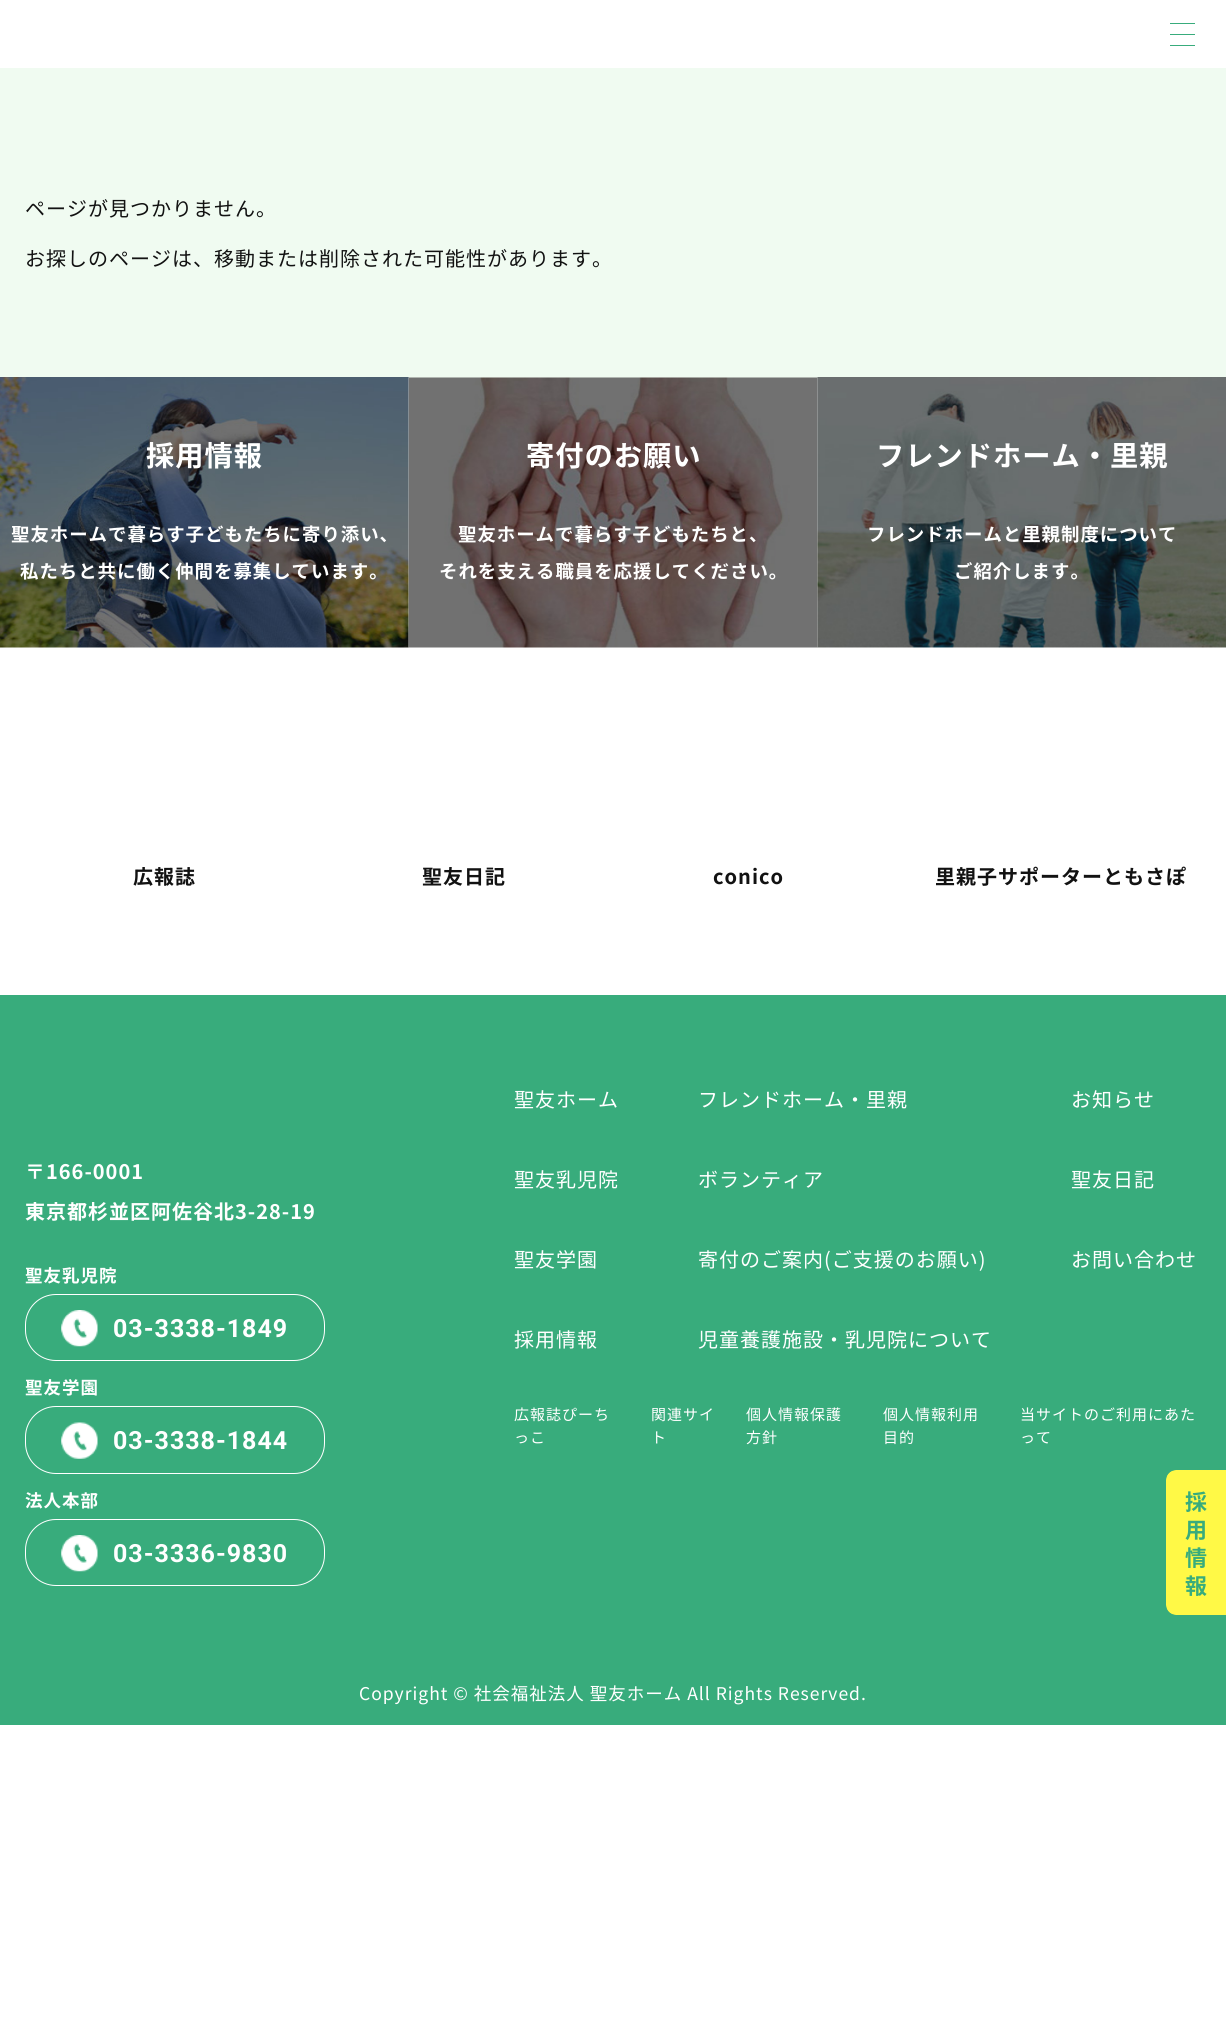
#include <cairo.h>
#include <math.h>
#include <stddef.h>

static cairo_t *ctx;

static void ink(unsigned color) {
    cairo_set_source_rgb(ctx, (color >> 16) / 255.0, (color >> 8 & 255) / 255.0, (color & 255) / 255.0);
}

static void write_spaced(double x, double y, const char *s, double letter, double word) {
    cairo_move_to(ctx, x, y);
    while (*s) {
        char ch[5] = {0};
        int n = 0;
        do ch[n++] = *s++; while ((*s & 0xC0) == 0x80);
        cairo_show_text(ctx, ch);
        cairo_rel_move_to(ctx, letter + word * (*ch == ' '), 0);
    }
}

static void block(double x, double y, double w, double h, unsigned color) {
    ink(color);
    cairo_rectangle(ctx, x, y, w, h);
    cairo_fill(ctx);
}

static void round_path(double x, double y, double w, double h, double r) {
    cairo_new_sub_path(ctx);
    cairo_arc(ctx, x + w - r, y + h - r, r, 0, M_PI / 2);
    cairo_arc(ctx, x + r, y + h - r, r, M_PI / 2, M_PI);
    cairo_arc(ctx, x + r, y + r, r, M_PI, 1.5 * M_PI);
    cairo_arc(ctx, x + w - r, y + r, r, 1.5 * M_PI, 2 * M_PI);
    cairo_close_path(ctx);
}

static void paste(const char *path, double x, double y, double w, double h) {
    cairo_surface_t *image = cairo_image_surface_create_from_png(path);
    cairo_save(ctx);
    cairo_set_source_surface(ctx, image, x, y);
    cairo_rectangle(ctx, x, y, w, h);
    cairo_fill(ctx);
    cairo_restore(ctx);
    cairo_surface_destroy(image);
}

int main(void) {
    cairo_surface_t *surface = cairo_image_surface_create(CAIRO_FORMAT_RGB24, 1226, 2021);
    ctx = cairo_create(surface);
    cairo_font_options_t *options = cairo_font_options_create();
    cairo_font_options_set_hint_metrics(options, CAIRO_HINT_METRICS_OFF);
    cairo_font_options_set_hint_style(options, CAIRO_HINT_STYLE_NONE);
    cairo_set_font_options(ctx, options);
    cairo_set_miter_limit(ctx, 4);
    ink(0xffffff);
    cairo_paint(ctx);
    block(1170, 23, 25, 1, 0x38ac7c);
    block(1170, 34, 25, 1, 0x38ac7c);
    block(1170, 45, 25, 1, 0x38ac7c);
    block(0, 68, 1226, 310, 0xf0fbf1);
    cairo_select_font_face(ctx, "Noto Sans JP", CAIRO_FONT_SLANT_NORMAL, CAIRO_FONT_WEIGHT_NORMAL);
    cairo_set_font_size(ctx, 20);
    ink(0x121212);
    write_spaced(25, 216, "ページが見つかりません。", 1, 0);
    write_spaced(25, 266, "お探しのページは、移動または削除された可能性があります。", 1, 0);
    paste("pic1.png", 0, 377, 409, 271);
    cairo_select_font_face(ctx, "Noto Sans JP", CAIRO_FONT_SLANT_NORMAL, CAIRO_FONT_WEIGHT_BOLD);
    cairo_set_font_size(ctx, 28.25);
    ink(0xffffff);
    write_spaced(146, 466, "採用情報", 1, 0);
    cairo_set_font_size(ctx, 18.4);
    write_spaced(11, 541, "聖友ホームで暮らす子どもたちに寄り添い、", 1, 0);
    write_spaced(20, 578, "私たちと共に働く仲間を募集しています。", 1, 0);
    paste("pic2.png", 408, 377, 410, 271);
    cairo_set_font_size(ctx, 28.25);
    write_spaced(526, 466, "寄付のお願い", 1, 0);
    cairo_set_font_size(ctx, 18.4);
    write_spaced(458, 541, "聖友ホームで暮らす子どもたちと、", 1, 0);
    write_spaced(439, 578, "それを支える職員を応援してください。", 1, 0);
    paste("pic3.png", 817, 377, 409, 271);
    cairo_set_font_size(ctx, 28.25);
    write_spaced(876, 466, "フレンドホーム・里親", 1, 0);
    cairo_set_font_size(ctx, 18.4);
    write_spaced(867, 541, "フレンドホームと里親制度について", 1, 0);
    write_spaced(954, 578, "ご紹介します。", 1, 0);
    cairo_set_font_size(ctx, 20);
    ink(0x121212);
    write_spaced(133, 884, "広報誌", 1, 0);
    write_spaced(422, 884, "聖友日記", 1, 0);
    write_spaced(713, 884, "conico", 1, 0);
    write_spaced(935, 884, "里親子サポーターともさぽ", 1, 0);
    block(0, 995, 1226, 730, 0x38ac7c);
    ink(0xffffff);
    write_spaced(25, 1179, "〒166-0001", 1, 0);
    write_spaced(25, 1219, "東京都杉並区阿佐谷北3-28-19", 1, 0);
    cairo_set_font_size(ctx, 17.5);
    write_spaced(25, 1282, "聖友乳児院", 1, 0);
    round_path(25.5, 1294.5, 299, 66, 30.5);
    cairo_set_line_width(ctx, 1);
    cairo_stroke(ctx);
    paste("pic4.png", 61, 1310, 37, 37);
    cairo_select_font_face(ctx, "Roboto", CAIRO_FONT_SLANT_NORMAL, CAIRO_FONT_WEIGHT_BOLD);
    cairo_set_font_size(ctx, 25);
    write_spaced(113, 1337, "03-3338-1849", 1, 0);
    cairo_select_font_face(ctx, "Noto Sans JP", CAIRO_FONT_SLANT_NORMAL, CAIRO_FONT_WEIGHT_BOLD);
    cairo_set_font_size(ctx, 17.5);
    write_spaced(25, 1394, "聖友学園", 1, 0);
    round_path(25.5, 1406.5, 299, 67, 30.5);
    cairo_stroke(ctx);
    paste("pic5.png", 61, 1422, 37, 37);
    cairo_select_font_face(ctx, "Roboto", CAIRO_FONT_SLANT_NORMAL, CAIRO_FONT_WEIGHT_BOLD);
    cairo_set_font_size(ctx, 25);
    write_spaced(113, 1449, "03-3338-1844", 1, 0);
    cairo_select_font_face(ctx, "Noto Sans JP", CAIRO_FONT_SLANT_NORMAL, CAIRO_FONT_WEIGHT_BOLD);
    cairo_set_font_size(ctx, 17.5);
    write_spaced(25, 1507, "法人本部", 1, 0);
    round_path(25.5, 1519.5, 299, 66, 30.5);
    cairo_stroke(ctx);
    paste("pic4.png", 61, 1535, 37, 37);
    cairo_select_font_face(ctx, "Roboto", CAIRO_FONT_SLANT_NORMAL, CAIRO_FONT_WEIGHT_BOLD);
    cairo_set_font_size(ctx, 25);
    write_spaced(113, 1562, "03-3336-9830", 1, 0);
    cairo_select_font_face(ctx, "Noto Sans JP", CAIRO_FONT_SLANT_NORMAL, CAIRO_FONT_WEIGHT_NORMAL);
    cairo_set_font_size(ctx, 20);
    write_spaced(514, 1107, "聖友ホーム", 1, 0);
    write_spaced(698, 1107, "フレンドホーム・里親", 1, 0);
    write_spaced(1071, 1107, "お知らせ", 1, 0);
    write_spaced(514, 1187, "聖友乳児院", 1, 0);
    write_spaced(698, 1187, "ボランティア", 1, 0);
    write_spaced(1071, 1187, "聖友日記", 1, 0);
    write_spaced(514, 1267, "聖友学園", 1, 0);
    write_spaced(698, 1267, "寄付のご案内(ご支援のお願い)", 1, 0);
    write_spaced(1071, 1267, "お問い合わせ", 1, 0);
    write_spaced(514, 1347, "採用情報", 1, 0);
    write_spaced(698, 1347, "児童養護施設・乳児院について", 1, 0);
    cairo_set_font_size(ctx, 15);
    write_spaced(514, 1420, "広報誌ぴーち", 1, 0);
    write_spaced(514, 1443, "っこ", 1, 0);
    write_spaced(651, 1420, "関連サイ", 1, 0);
    write_spaced(651, 1443, "ト", 1, 0);
    write_spaced(746, 1420, "個人情報保護", 1, 0);
    write_spaced(746, 1443, "方針", 1, 0);
    write_spaced(883, 1420, "個人情報利用", 1, 0);
    write_spaced(883, 1443, "目的", 1, 0);
    write_spaced(1020, 1420, "当サイトのご利用にあた", 1, 0);
    write_spaced(1020, 1443, "って", 1, 0);
    cairo_set_font_size(ctx, 17.5);
    write_spaced(359, 1700, "Copyright © 社会福祉法人 聖友ホーム All Rights Reserved.", 1, 0);
    ink(0xfff946);
    cairo_new_path(ctx);
    cairo_move_to(ctx, 1176, 1470);
    cairo_line_to(ctx, 1226, 1470);
    cairo_line_to(ctx, 1226, 1615);
    cairo_line_to(ctx, 1176, 1615);
    cairo_curve_to(ctx, 1170.5, 1615, 1166, 1610.5, 1166, 1605);
    cairo_line_to(ctx, 1166, 1480);
    cairo_curve_to(ctx, 1166, 1474.5, 1170.5, 1470, 1176, 1470);
    cairo_close_path(ctx);
    cairo_fill(ctx);
    ink(0x38ac7c);
    cairo_set_fill_rule(ctx, CAIRO_FILL_RULE_EVEN_ODD);
    cairo_new_path(ctx);
    cairo_move_to(ctx, 1176, 1468);
    cairo_line_to(ctx, 1226, 1468);
    cairo_line_to(ctx, 1226, 1618);
    cairo_line_to(ctx, 1176, 1618);
    cairo_curve_to(ctx, 1169, 1618, 1164, 1612, 1164, 1605);
    cairo_line_to(ctx, 1164, 1480);
    cairo_curve_to(ctx, 1164, 1473, 1169, 1468, 1176, 1468);
    cairo_close_path(ctx);
    cairo_move_to(ctx, 1176, 1470);
    cairo_line_to(ctx, 1226, 1470);
    cairo_line_to(ctx, 1226, 1615);
    cairo_line_to(ctx, 1176, 1615);
    cairo_curve_to(ctx, 1171, 1615, 1166, 1611, 1166, 1605);
    cairo_line_to(ctx, 1166, 1480);
    cairo_curve_to(ctx, 1166, 1474, 1171, 1470, 1176, 1470);
    cairo_close_path(ctx);
    cairo_fill(ctx);
    cairo_select_font_face(ctx, "Noto Sans JP", CAIRO_FONT_SLANT_NORMAL, CAIRO_FONT_WEIGHT_BOLD);
    cairo_set_font_size(ctx, 22);
    write_spaced(1185, 1510, "採", 5, 0);
    write_spaced(1185, 1538, "用", 5, 0);
    write_spaced(1185, 1566, "情", 5, 0);
    write_spaced(1185, 1594, "報", 5, 0);
    cairo_surface_write_to_png(surface, "screenshot.png");
    cairo_font_options_destroy(options);
    cairo_destroy(ctx);
    cairo_surface_destroy(surface);
    return 0;
}
